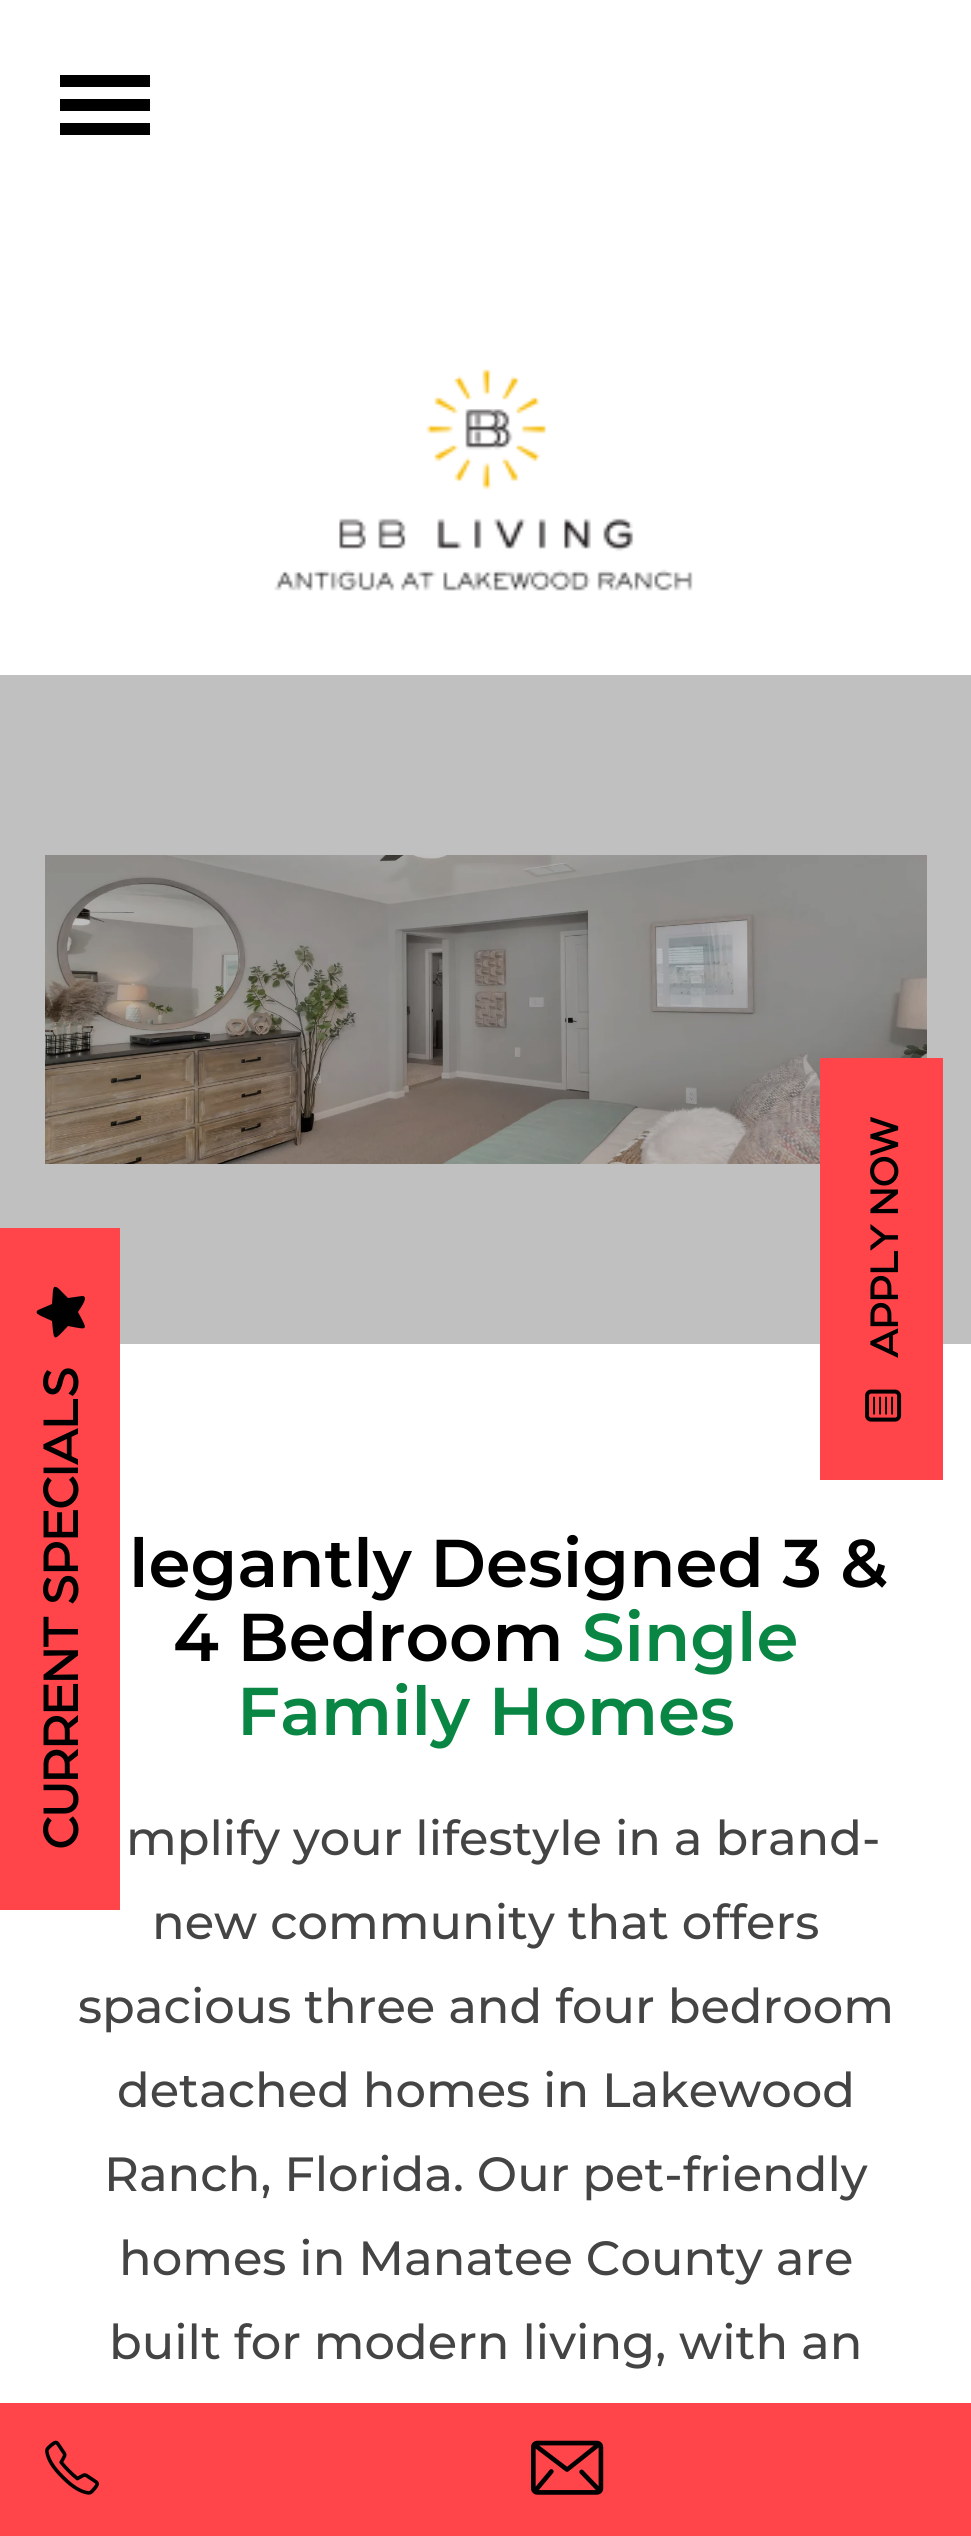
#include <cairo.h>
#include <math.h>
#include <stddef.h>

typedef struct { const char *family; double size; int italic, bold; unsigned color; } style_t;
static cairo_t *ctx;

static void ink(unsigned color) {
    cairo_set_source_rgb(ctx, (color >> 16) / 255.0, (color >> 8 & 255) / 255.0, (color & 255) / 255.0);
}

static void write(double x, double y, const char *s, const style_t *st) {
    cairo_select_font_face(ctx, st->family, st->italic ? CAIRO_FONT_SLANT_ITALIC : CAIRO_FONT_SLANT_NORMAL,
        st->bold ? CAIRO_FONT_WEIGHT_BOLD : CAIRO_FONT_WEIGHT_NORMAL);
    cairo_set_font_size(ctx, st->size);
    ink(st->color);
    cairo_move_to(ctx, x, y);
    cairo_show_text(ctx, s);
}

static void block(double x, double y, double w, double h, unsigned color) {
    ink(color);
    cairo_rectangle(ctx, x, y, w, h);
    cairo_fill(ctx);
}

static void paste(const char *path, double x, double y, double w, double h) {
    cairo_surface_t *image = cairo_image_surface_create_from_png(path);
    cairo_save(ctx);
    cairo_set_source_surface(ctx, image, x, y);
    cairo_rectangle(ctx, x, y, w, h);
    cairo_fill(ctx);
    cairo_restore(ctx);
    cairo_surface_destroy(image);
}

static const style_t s1 = {"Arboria", 40.75, 0, 1, 0x000000};
static const style_t s2 = {"Arboria", 51, 0, 1, 0x000000};
static const style_t s3 = {"Montserrat SemiBold", 67.5, 0, 0, 0x000000};
static const style_t s4 = {"Montserrat SemiBold", 67.5, 0, 0, 0x098644};
static const style_t s5 = {"Montserrat Medium", 48, 0, 0, 0x444444};

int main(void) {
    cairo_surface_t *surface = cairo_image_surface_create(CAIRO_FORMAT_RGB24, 971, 2536);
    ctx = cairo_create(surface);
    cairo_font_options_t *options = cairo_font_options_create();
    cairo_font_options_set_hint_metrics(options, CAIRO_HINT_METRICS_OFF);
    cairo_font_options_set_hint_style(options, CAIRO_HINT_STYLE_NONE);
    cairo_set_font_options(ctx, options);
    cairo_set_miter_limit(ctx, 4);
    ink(0xffffff);
    cairo_paint(ctx);
    block(60, 75, 90, 12, 0x000000);
    block(60, 99, 90, 12, 0x000000);
    block(60, 123, 90, 12, 0x000000);
    paste("pic1.png", 274, 369, 419, 222);
    block(0, 675, 971, 669, 0xc0c0c0);
    paste("pic5.png", 45, 855, 882, 309);
    block(820, 1058, 123, 422, 0xff454a);
    cairo_save(ctx);
    cairo_translate(ctx, 898, 1358);
    cairo_rotate(ctx, -90 * M_PI / 180);
    write(0, 0, "APPLY NOW", &s1);
    cairo_restore(ctx);
    paste("pic2.png", 865, 1389, 37, 33);
    block(0, 1228, 120, 682, 0xff454a);
    ink(0x000000);
    cairo_new_path(ctx);
    cairo_move_to(ctx, 85, 1298);
    cairo_close_path(ctx);
    cairo_move_to(ctx, 53, 1290);
    cairo_line_to(ctx, 54, 1287);
    cairo_curve_to(ctx, 57, 1286, 60, 1290, 61, 1291);
    cairo_line_to(ctx, 68, 1298);
    cairo_line_to(ctx, 82, 1296);
    cairo_curve_to(ctx, 89, 1296, 82, 1306, 78, 1312);
    cairo_curve_to(ctx, 88, 1331, 89, 1330, 68, 1326);
    cairo_curve_to(ctx, 53, 1342, 54, 1342, 52, 1321);
    cairo_curve_to(ctx, 42, 1316, 33, 1314, 38, 1310);
    cairo_line_to(ctx, 52, 1304);
    cairo_close_path(ctx);
    cairo_fill(ctx);
    cairo_save(ctx);
    cairo_translate(ctx, 78, 1850);
    cairo_rotate(ctx, -90 * M_PI / 180);
    write(0, 0, "CURRENT SPECIALS", &s2);
    cairo_restore(ctx);
    block(0, 2403, 971, 133, 0xff454a);
    paste("pic3.png", 45, 2440, 54, 55);
    paste("pic4.png", 531, 2440, 73, 55);
    write(129, 1587, "legantly Designed 3 &", &s3);
    write(173, 1661, "4 Bedroom", &s3);
    write(582, 1661, "Single", &s4);
    write(237, 1735, "Family Homes", &s4);
    write(126, 1855, "mplify your lifestyle in a brand-", &s5);
    write(152, 1939, "new community that offers", &s5);
    write(78, 2023, "spacious three and four bedroom", &s5);
    write(117, 2107, "detached homes in Lakewood", &s5);
    write(104, 2191, "Ranch, Florida. Our pet-friendly", &s5);
    write(119, 2275, "homes in Manatee County are", &s5);
    write(109, 2359, "built for modern living, with an", &s5);
    cairo_surface_write_to_png(surface, "screenshot.png");
    cairo_font_options_destroy(options);
    cairo_destroy(ctx);
    cairo_surface_destroy(surface);
    return 0;
}
